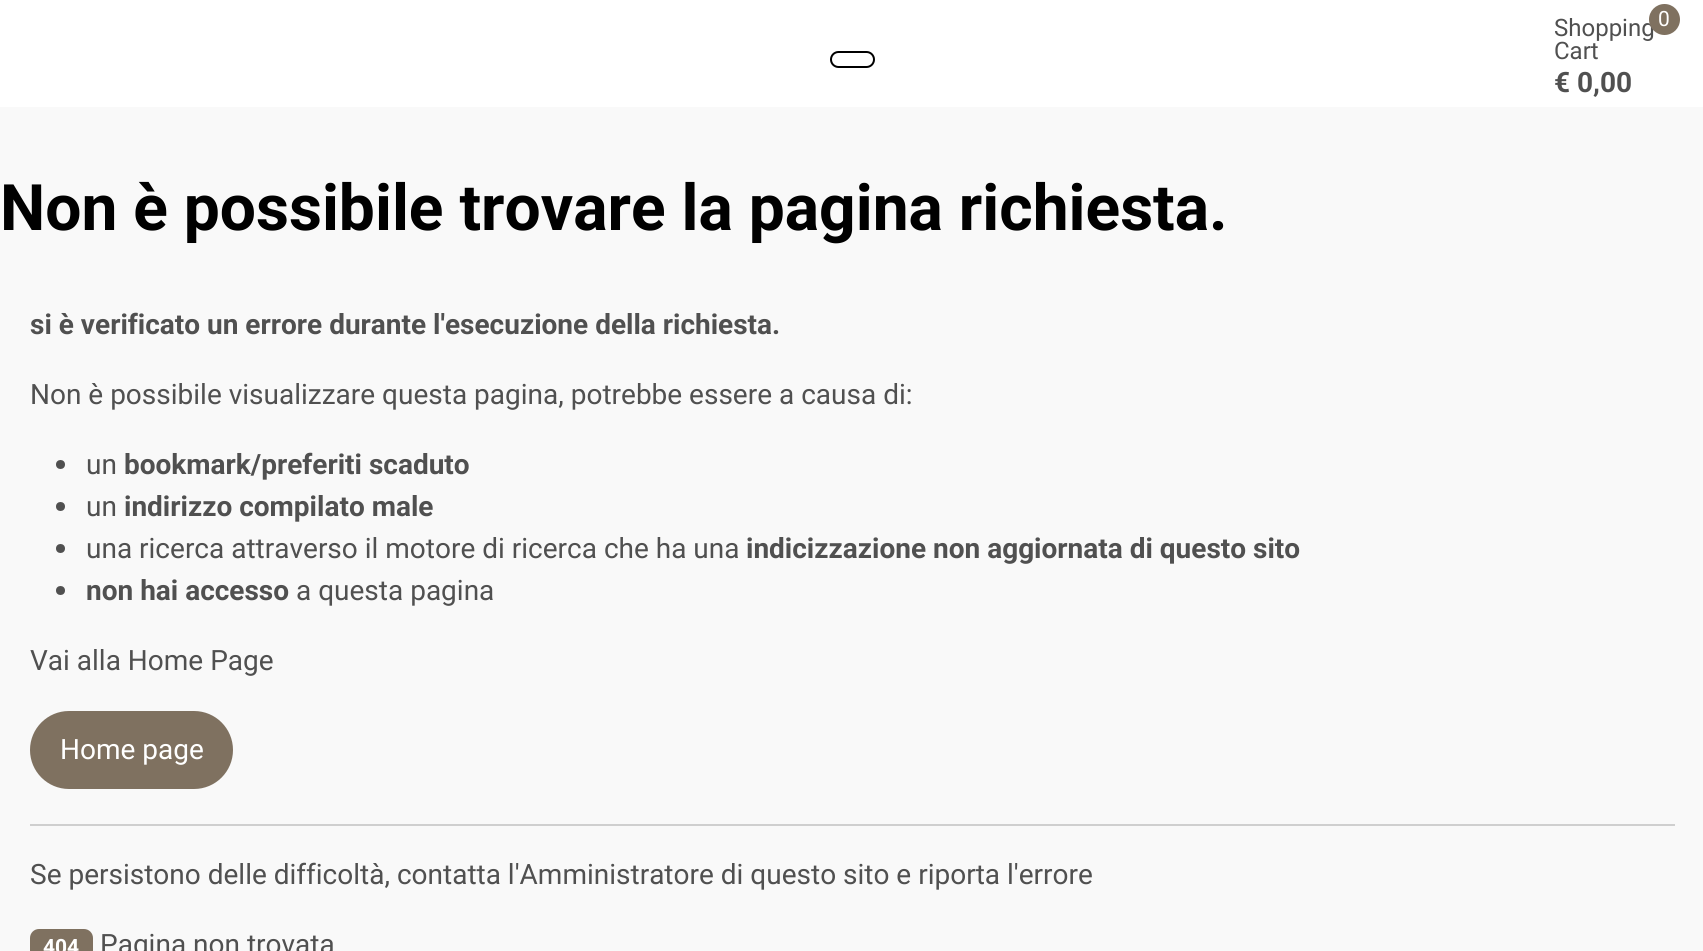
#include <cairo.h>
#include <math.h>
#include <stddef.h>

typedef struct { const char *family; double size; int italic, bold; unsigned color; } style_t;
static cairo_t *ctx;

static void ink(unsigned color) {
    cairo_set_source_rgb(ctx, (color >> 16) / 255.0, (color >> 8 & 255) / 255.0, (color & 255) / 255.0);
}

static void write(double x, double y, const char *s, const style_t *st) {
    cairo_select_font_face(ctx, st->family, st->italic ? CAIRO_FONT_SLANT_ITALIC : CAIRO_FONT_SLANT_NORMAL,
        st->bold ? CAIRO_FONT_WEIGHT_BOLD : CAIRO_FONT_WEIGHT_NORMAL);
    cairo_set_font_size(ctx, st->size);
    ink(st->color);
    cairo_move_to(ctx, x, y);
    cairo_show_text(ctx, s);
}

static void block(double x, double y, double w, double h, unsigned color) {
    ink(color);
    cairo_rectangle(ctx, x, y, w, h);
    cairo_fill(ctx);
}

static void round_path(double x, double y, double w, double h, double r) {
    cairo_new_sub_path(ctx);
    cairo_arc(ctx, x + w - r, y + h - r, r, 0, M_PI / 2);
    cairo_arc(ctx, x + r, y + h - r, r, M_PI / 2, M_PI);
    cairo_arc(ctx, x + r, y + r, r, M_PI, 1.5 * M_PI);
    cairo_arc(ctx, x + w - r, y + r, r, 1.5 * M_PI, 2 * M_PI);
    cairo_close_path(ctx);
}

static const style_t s1 = {"Roboto", 24, 0, 0, 0x505050};
static const style_t s2 = {"Roboto", 28, 0, 1, 0x505050};
static const style_t s3 = {"Roboto", 21, 0, 0, 0xffffff};
static const style_t s4 = {"Roboto", 64.1, 0, 1, 0x000000};
static const style_t s5 = {"Roboto", 28, 0, 0, 0x505050};
static const style_t s6 = {"Roboto", 28, 0, 0, 0xffffff};
static const style_t s7 = {"Roboto", 21, 0, 1, 0xffffff};

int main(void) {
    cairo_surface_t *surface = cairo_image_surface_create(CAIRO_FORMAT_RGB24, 1703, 951);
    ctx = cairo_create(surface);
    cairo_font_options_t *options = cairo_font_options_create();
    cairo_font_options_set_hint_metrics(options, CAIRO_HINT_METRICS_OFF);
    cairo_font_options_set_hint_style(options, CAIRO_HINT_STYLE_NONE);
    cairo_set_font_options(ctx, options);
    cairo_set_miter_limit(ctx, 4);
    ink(0xf9f9f9);
    cairo_paint(ctx);
    block(0, 0, 1703, 107, 0xffffff);
    round_path(831, 52, 43, 15, 7.5);
    ink(0x000000);
    cairo_stroke(ctx);
    write(1554, 36, "Shopping", &s1);
    write(1554, 59, "Cart", &s1);
    write(1554, 92, "€ 0,00", &s2);
    ink(0x7f7160);
    cairo_new_path(ctx);
    cairo_arc(ctx, 1664.5, 19.5, 15.5, 0, 2 * M_PI);
    cairo_fill(ctx);
    write(1658, 26, "0", &s3);
    write(0, 230, "Non è possibile trovare la pagina richiesta.", &s4);
    write(30, 334, "si è verificato un errore durante l'esecuzione della richiesta.", &s2);
    write(30, 404, "Non è possibile visualizzare questa pagina, potrebbe essere a causa di:", &s5);
    cairo_new_path(ctx);
    cairo_arc(ctx, 60.5, 464.5, 4.5, 0, 2 * M_PI);
    cairo_fill(ctx);
    write(86, 474, "un", &s5);
    write(124, 474, "bookmark/preferiti scaduto", &s2);
    cairo_new_path(ctx);
    cairo_arc(ctx, 60.5, 506.5, 4.5, 0, 2 * M_PI);
    cairo_fill(ctx);
    write(86, 516, "un", &s5);
    write(124, 516, "indirizzo compilato male", &s2);
    cairo_new_path(ctx);
    cairo_arc(ctx, 60.5, 548.5, 4.5, 0, 2 * M_PI);
    cairo_fill(ctx);
    write(86, 558, "una ricerca attraverso il motore di ricerca che ha una", &s5);
    write(746, 558, "indicizzazione non aggiornata di questo sito", &s2);
    cairo_new_path(ctx);
    cairo_arc(ctx, 60.5, 590.5, 4.5, 0, 2 * M_PI);
    cairo_fill(ctx);
    write(86, 600, "non hai accesso", &s2);
    write(296, 600, "a questa pagina", &s5);
    write(30, 670, "Vai alla Home Page", &s5);
    ink(0x7f7160);
    round_path(31, 712, 201, 76, 38);
    cairo_fill_preserve(ctx);
    cairo_stroke(ctx);
    write(60, 759, "Home page", &s6);
    block(30, 824, 1645, 2, 0xcfcfcf);
    write(30, 884, "Se persistono delle difficoltà, contatta l'Amministratore di questo sito e riporta l'errore", &s5);
    ink(0x7f7160);
    round_path(30, 929, 63, 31, 9);
    cairo_fill(ctx);
    write(43, 954, "404", &s7);
    write(100, 954, "Pagina non trovata", &s5);
    cairo_surface_write_to_png(surface, "screenshot.png");
    cairo_font_options_destroy(options);
    cairo_destroy(ctx);
    cairo_surface_destroy(surface);
    return 0;
}
